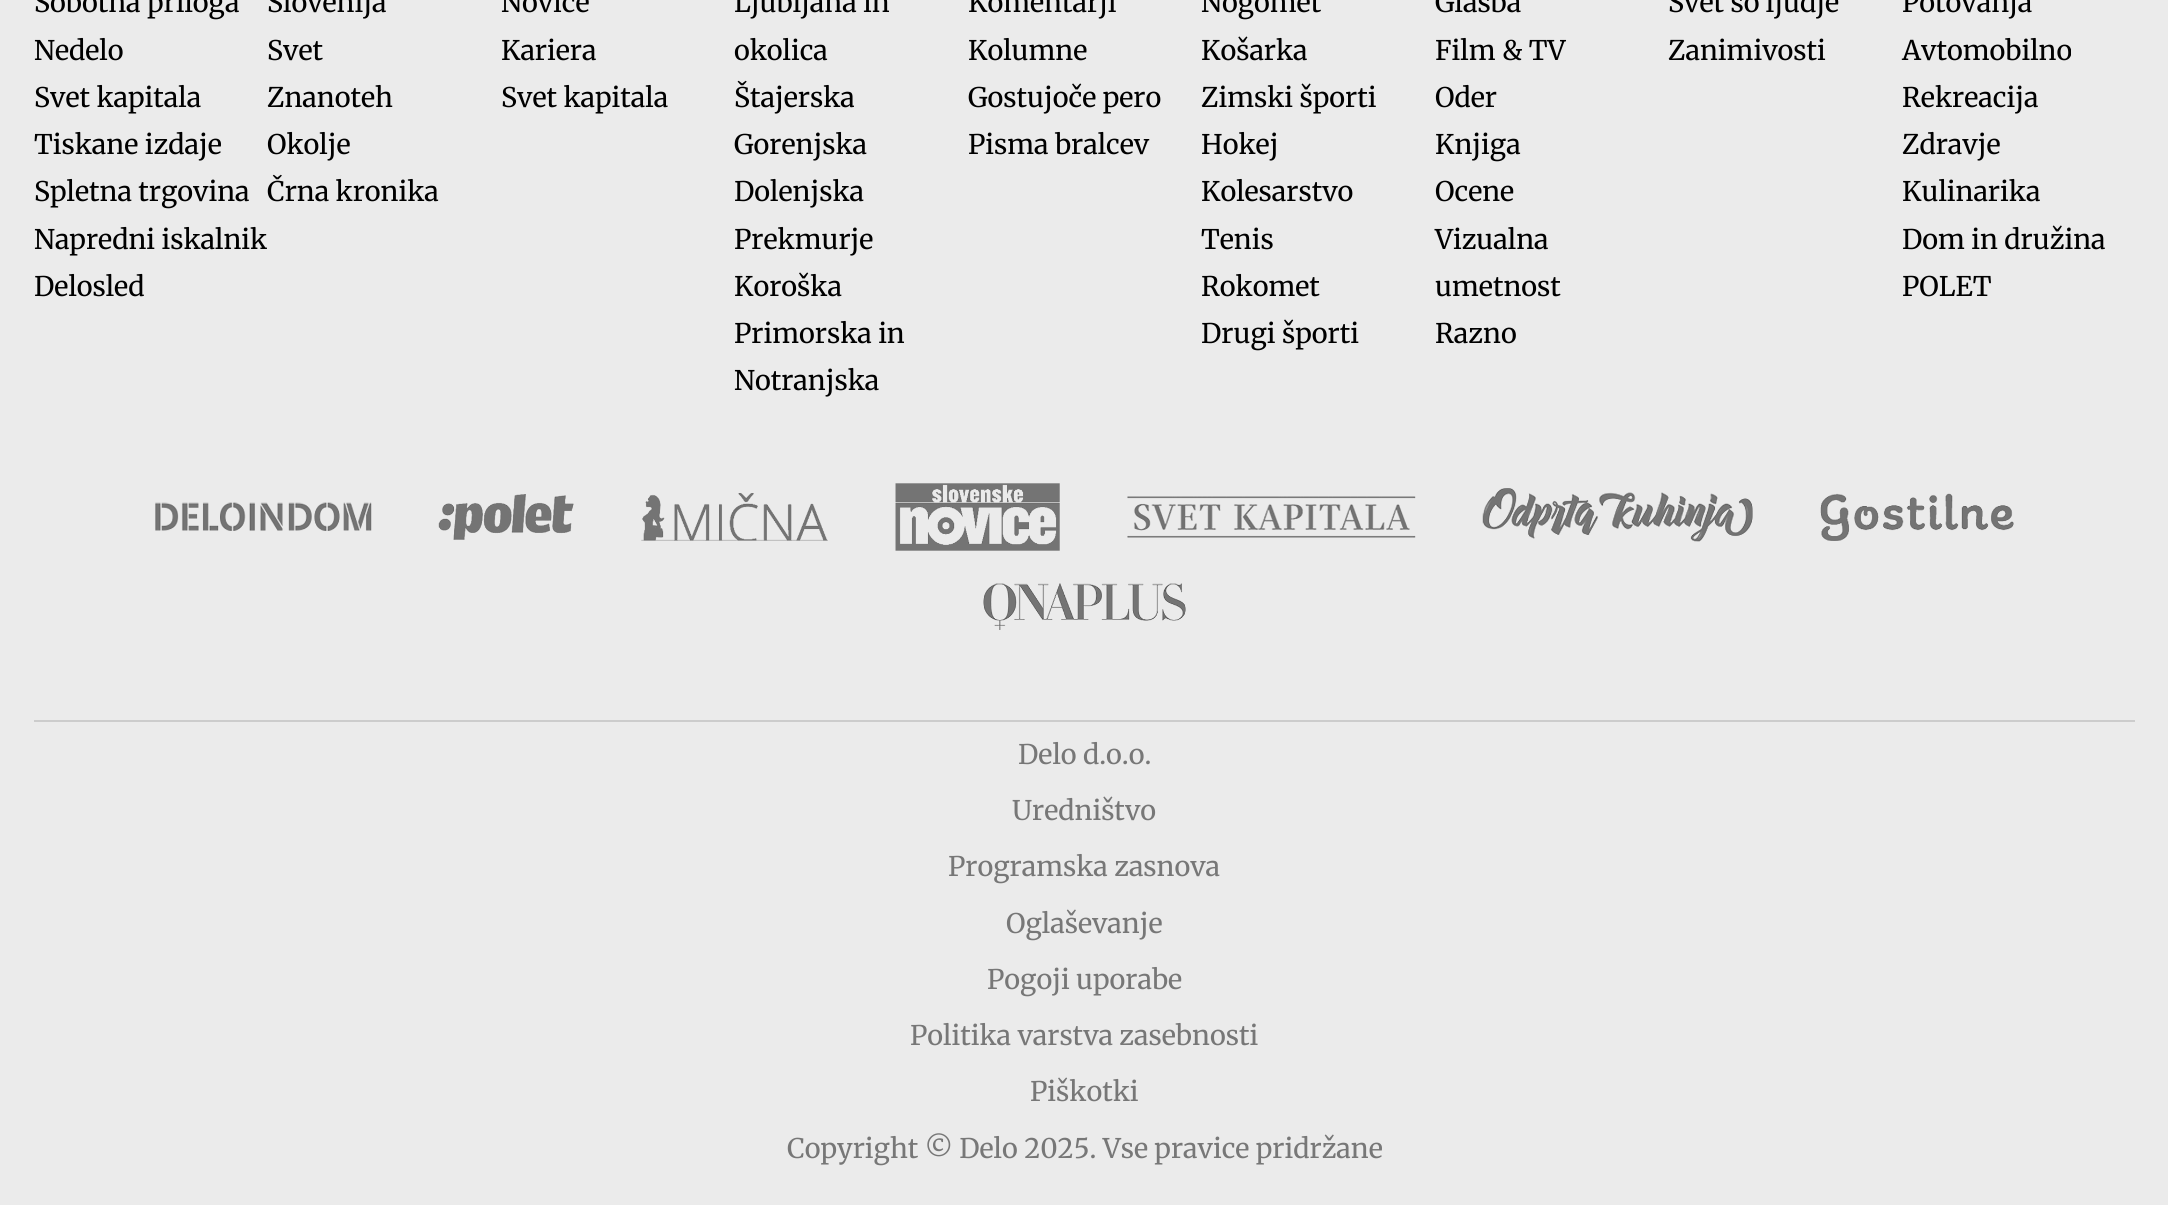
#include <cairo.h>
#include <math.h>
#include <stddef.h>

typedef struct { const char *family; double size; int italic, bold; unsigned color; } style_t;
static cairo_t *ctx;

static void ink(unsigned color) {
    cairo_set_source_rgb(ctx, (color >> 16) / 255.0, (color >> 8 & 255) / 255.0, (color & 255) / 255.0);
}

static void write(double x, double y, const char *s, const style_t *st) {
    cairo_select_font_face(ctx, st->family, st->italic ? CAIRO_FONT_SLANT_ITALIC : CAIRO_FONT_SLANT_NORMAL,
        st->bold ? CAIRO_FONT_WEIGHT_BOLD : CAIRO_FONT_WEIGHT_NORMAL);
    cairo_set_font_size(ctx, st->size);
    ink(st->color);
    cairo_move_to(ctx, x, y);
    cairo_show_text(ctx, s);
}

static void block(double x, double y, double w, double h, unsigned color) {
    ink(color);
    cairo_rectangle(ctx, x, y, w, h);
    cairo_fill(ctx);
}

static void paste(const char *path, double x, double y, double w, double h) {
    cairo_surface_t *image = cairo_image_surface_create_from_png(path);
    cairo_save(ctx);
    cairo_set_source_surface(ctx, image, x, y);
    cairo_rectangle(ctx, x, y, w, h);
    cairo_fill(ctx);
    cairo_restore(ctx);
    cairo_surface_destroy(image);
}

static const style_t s1 = {"Merriweather", 27, 0, 0, 0x000000};
static const style_t s2 = {"Merriweather", 27, 0, 0, 0x777777};

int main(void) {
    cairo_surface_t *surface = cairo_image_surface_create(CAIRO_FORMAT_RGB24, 2168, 1205);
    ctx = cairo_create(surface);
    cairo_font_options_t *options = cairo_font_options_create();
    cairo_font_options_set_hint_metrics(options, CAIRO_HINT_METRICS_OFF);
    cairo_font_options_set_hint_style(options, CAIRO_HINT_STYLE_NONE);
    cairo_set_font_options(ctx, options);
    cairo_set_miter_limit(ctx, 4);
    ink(0xebebeb);
    cairo_paint(ctx);
    write(34, 12, "Sobotna priloga", &s1);
    write(34, 60, "Nedelo", &s1);
    write(34, 107, "Svet kapitala", &s1);
    write(34, 154, "Tiskane izdaje", &s1);
    write(34, 201, "Spletna trgovina", &s1);
    write(34, 249, "Napredni iskalnik", &s1);
    write(34, 296, "Delosled", &s1);
    write(267, 12, "Slovenija", &s1);
    write(267, 60, "Svet", &s1);
    write(267, 107, "Znanoteh", &s1);
    write(267, 154, "Okolje", &s1);
    write(267, 201, "Črna kronika", &s1);
    write(501, 12, "Novice", &s1);
    write(501, 60, "Kariera", &s1);
    write(501, 107, "Svet kapitala", &s1);
    write(734, 12, "Ljubljana in", &s1);
    write(734, 60, "okolica", &s1);
    write(734, 107, "Štajerska", &s1);
    write(734, 154, "Gorenjska", &s1);
    write(734, 201, "Dolenjska", &s1);
    write(734, 249, "Prekmurje", &s1);
    write(734, 296, "Koroška", &s1);
    write(734, 343, "Primorska in", &s1);
    write(734, 390, "Notranjska", &s1);
    write(968, 12, "Komentarji", &s1);
    write(968, 60, "Kolumne", &s1);
    write(968, 107, "Gostujoče pero", &s1);
    write(968, 154, "Pisma bralcev", &s1);
    write(1201, 12, "Nogomet", &s1);
    write(1201, 60, "Košarka", &s1);
    write(1201, 107, "Zimski športi", &s1);
    write(1201, 154, "Hokej", &s1);
    write(1201, 201, "Kolesarstvo", &s1);
    write(1201, 249, "Tenis", &s1);
    write(1201, 296, "Rokomet", &s1);
    write(1201, 343, "Drugi športi", &s1);
    write(1435, 12, "Glasba", &s1);
    write(1435, 60, "Film & TV", &s1);
    write(1435, 107, "Oder", &s1);
    write(1435, 154, "Knjiga", &s1);
    write(1435, 201, "Ocene", &s1);
    write(1435, 249, "Vizualna", &s1);
    write(1435, 296, "umetnost", &s1);
    write(1435, 343, "Razno", &s1);
    write(1668, 12, "Svet so ljudje", &s1);
    write(1668, 60, "Zanimivosti", &s1);
    write(1902, 12, "Potovanja", &s1);
    write(1902, 60, "Avtomobilno", &s1);
    write(1902, 107, "Rekreacija", &s1);
    write(1902, 154, "Zdravje", &s1);
    write(1902, 201, "Kulinarika", &s1);
    write(1902, 249, "Dom in družina", &s1);
    write(1902, 296, "POLET", &s1);
    paste("pic1.png", 155, 502, 217, 29);
    paste("pic2.png", 438, 494, 136, 46);
    paste("pic3.png", 641, 493, 187, 48);
    paste("pic4.png", 895, 483, 165, 68);
    paste("pic5.png", 1127, 496, 289, 42);
    paste("pic6.png", 1482, 488, 271, 54);
    paste("pic7.png", 1820, 493, 194, 48);
    paste("pic8.png", 983, 583, 203, 47);
    block(34, 720, 2101, 2, 0xcccccc);
    write(1018, 764, "Delo d.o.o.", &s2);
    write(1012, 820, "Uredništvo", &s2);
    write(948, 876, "Programska zasnova", &s2);
    write(1006, 933, "Oglaševanje", &s2);
    write(987, 989, "Pogoji uporabe", &s2);
    write(910, 1045, "Politika varstva zasebnosti", &s2);
    write(1030, 1101, "Piškotki", &s2);
    write(787, 1158, "Copyright © Delo 2025. Vse pravice pridržane", &s2);
    cairo_surface_write_to_png(surface, "screenshot.png");
    cairo_font_options_destroy(options);
    cairo_destroy(ctx);
    cairo_surface_destroy(surface);
    return 0;
}
